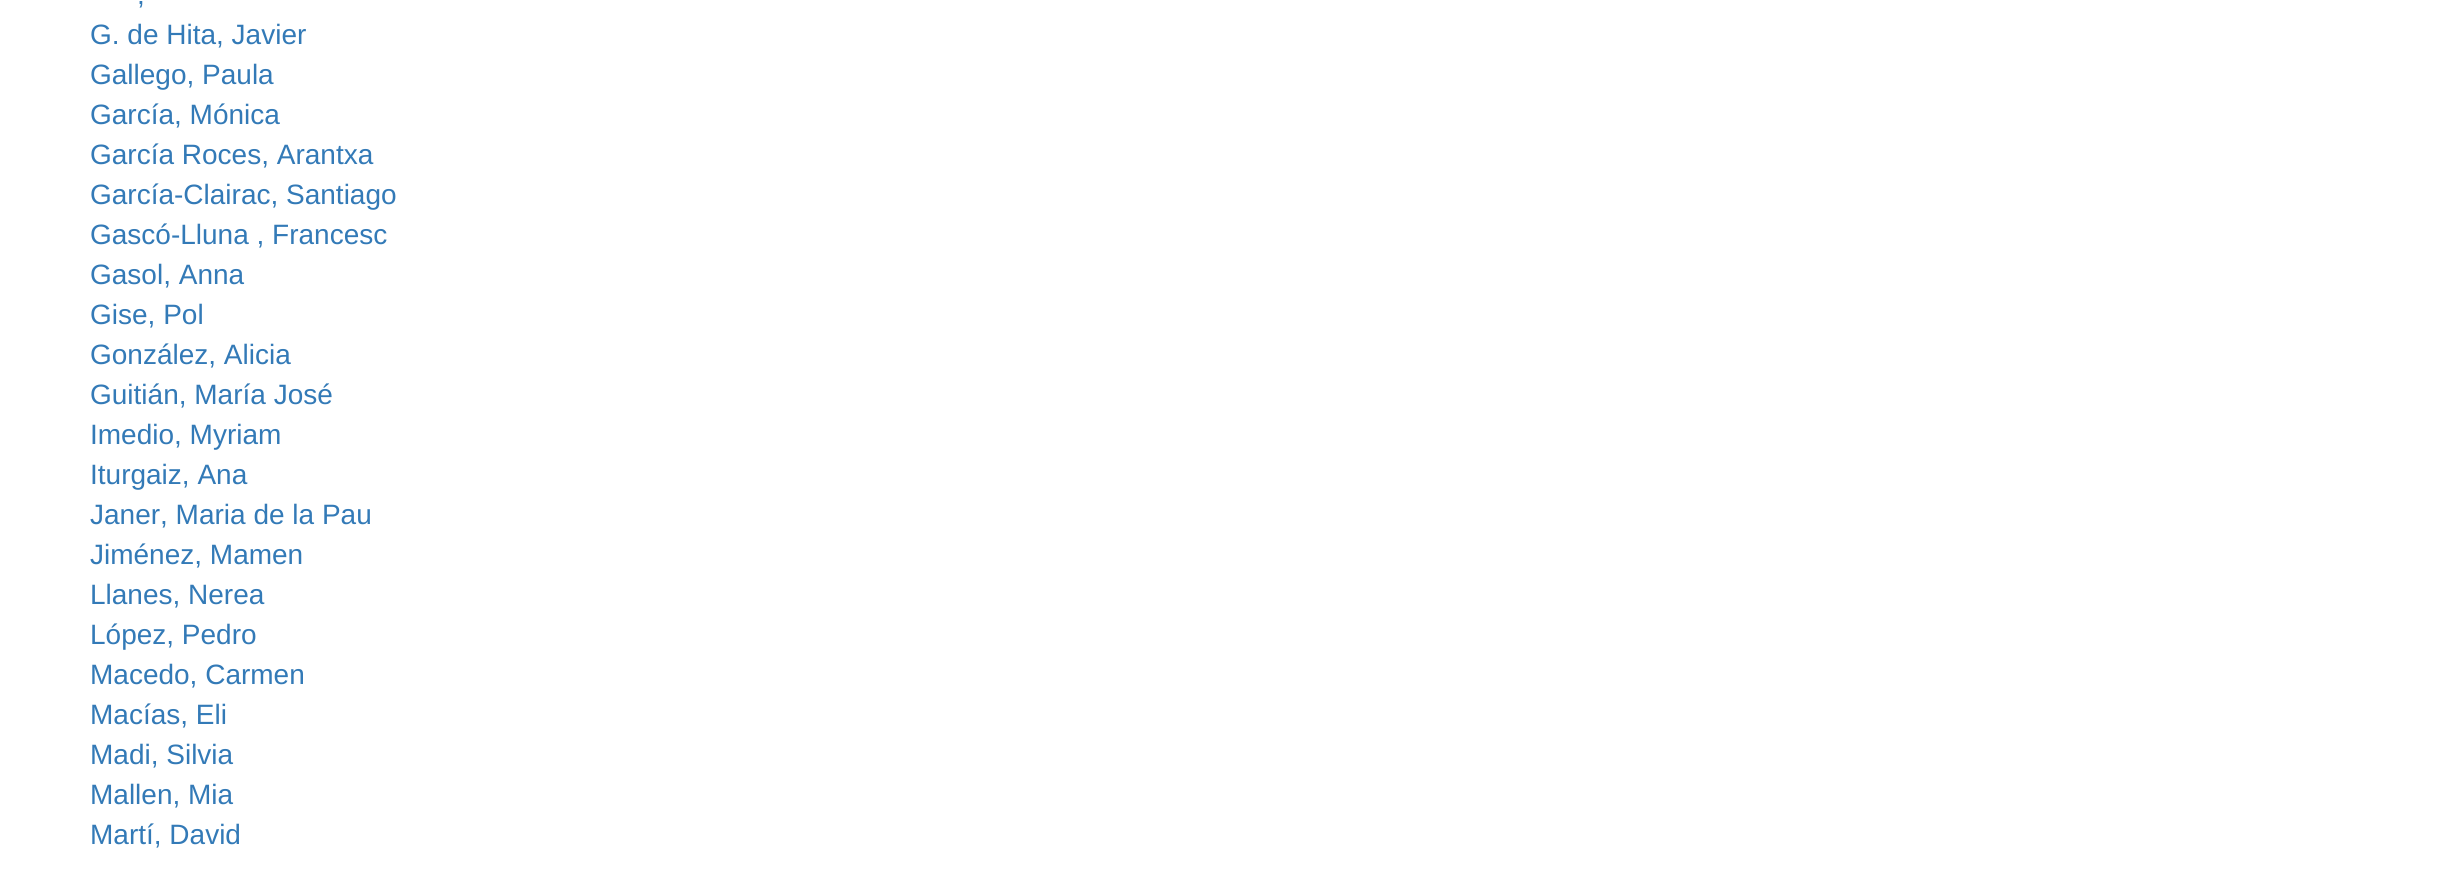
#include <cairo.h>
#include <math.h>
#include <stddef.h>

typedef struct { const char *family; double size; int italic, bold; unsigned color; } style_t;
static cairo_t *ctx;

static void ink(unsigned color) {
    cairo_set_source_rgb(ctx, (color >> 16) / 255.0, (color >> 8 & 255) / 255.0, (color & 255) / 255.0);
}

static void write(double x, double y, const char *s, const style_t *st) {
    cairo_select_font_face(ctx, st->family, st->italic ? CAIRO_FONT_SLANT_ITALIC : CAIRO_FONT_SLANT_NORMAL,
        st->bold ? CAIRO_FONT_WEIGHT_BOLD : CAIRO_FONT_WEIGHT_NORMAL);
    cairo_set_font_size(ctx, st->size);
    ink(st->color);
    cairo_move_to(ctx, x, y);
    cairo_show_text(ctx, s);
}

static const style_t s1 = {"Liberation Sans", 28, 0, 0, 0x337ab7};

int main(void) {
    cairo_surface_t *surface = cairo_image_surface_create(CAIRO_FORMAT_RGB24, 2459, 872);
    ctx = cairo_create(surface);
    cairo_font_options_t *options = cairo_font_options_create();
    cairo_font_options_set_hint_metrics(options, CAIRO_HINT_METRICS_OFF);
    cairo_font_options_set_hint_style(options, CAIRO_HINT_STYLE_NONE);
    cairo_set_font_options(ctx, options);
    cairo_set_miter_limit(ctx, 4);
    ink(0xffffff);
    cairo_paint(ctx);
    write(137, 4, ",", &s1);
    write(90, 44, "G. de Hita, Javier", &s1);
    write(90, 84, "Gallego, Paula", &s1);
    write(90, 124, "García, Mónica", &s1);
    write(90, 164, "García Roces, Arantxa", &s1);
    write(90, 204, "García-Clairac, Santiago", &s1);
    write(90, 244, "Gascó-Lluna , Francesc", &s1);
    write(90, 284, "Gasol, Anna", &s1);
    write(90, 324, "Gise, Pol", &s1);
    write(90, 364, "González, Alicia", &s1);
    write(90, 404, "Guitián, María José", &s1);
    write(90, 444, "Imedio, Myriam", &s1);
    write(90, 484, "Iturgaiz, Ana", &s1);
    write(90, 524, "Janer, Maria de la Pau", &s1);
    write(90, 564, "Jiménez, Mamen", &s1);
    write(90, 604, "Llanes, Nerea", &s1);
    write(90, 644, "López, Pedro", &s1);
    write(90, 684, "Macedo, Carmen", &s1);
    write(90, 724, "Macías, Eli", &s1);
    write(90, 764, "Madi, Silvia", &s1);
    write(90, 804, "Mallen, Mia", &s1);
    write(90, 844, "Martí, David", &s1);
    cairo_surface_write_to_png(surface, "screenshot.png");
    cairo_font_options_destroy(options);
    cairo_destroy(ctx);
    cairo_surface_destroy(surface);
    return 0;
}
